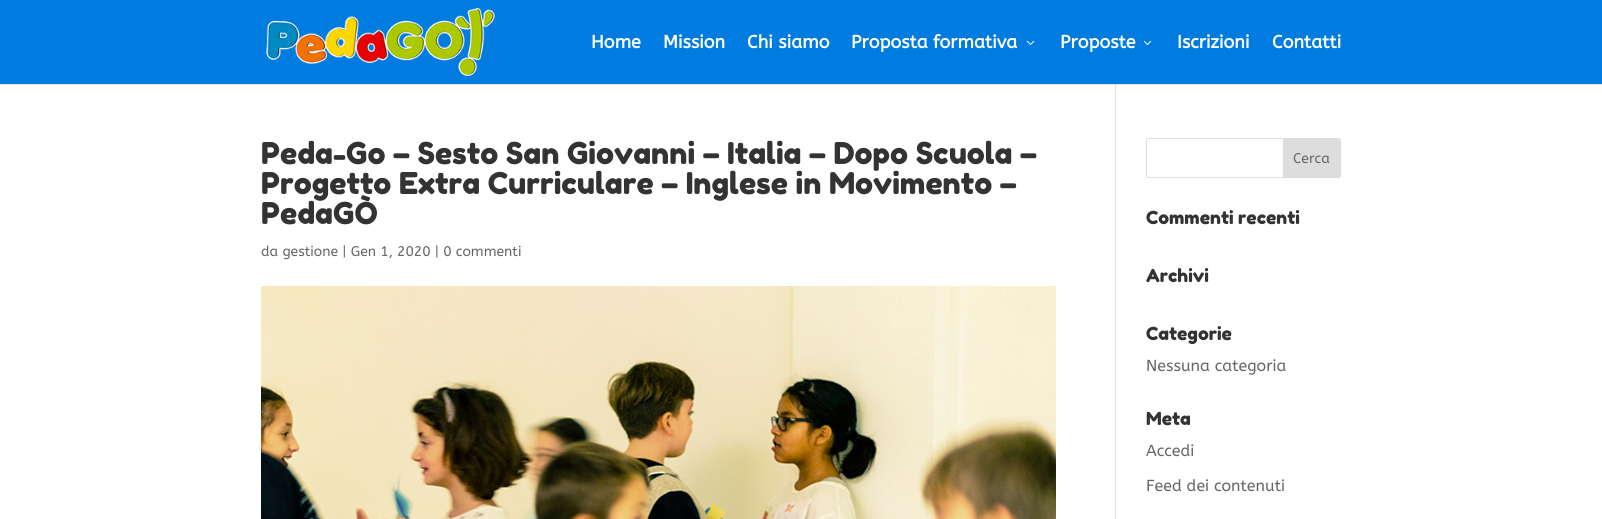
#include <cairo.h>
#include <math.h>
#include <stddef.h>

typedef struct { const char *family; double size; int italic, bold; unsigned color; } style_t;
static cairo_t *ctx;

static void ink(unsigned color) {
    cairo_set_source_rgb(ctx, (color >> 16) / 255.0, (color >> 8 & 255) / 255.0, (color & 255) / 255.0);
}

static void write(double x, double y, const char *s, const style_t *st) {
    cairo_select_font_face(ctx, st->family, st->italic ? CAIRO_FONT_SLANT_ITALIC : CAIRO_FONT_SLANT_NORMAL,
        st->bold ? CAIRO_FONT_WEIGHT_BOLD : CAIRO_FONT_WEIGHT_NORMAL);
    cairo_set_font_size(ctx, st->size);
    ink(st->color);
    cairo_move_to(ctx, x, y);
    cairo_show_text(ctx, s);
}

static void block(double x, double y, double w, double h, unsigned color) {
    ink(color);
    cairo_rectangle(ctx, x, y, w, h);
    cairo_fill(ctx);
}

static void round_path(double x, double y, double w, double h, double r) {
    cairo_new_sub_path(ctx);
    cairo_arc(ctx, x + w - r, y + h - r, r, 0, M_PI / 2);
    cairo_arc(ctx, x + r, y + h - r, r, M_PI / 2, M_PI);
    cairo_arc(ctx, x + r, y + r, r, M_PI, 1.5 * M_PI);
    cairo_arc(ctx, x + w - r, y + r, r, 1.5 * M_PI, 2 * M_PI);
    cairo_close_path(ctx);
}

static void paste(const char *path, double x, double y, double w, double h) {
    cairo_surface_t *image = cairo_image_surface_create_from_png(path);
    cairo_save(ctx);
    cairo_set_source_surface(ctx, image, x, y);
    cairo_rectangle(ctx, x, y, w, h);
    cairo_fill(ctx);
    cairo_restore(ctx);
    cairo_surface_destroy(image);
}

static const style_t s1 = {"ABeeZee", 18, 0, 1, 0xffffff};
static const style_t s2 = {"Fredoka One", 30, 0, 0, 0x333333};
static const style_t s3 = {"ABeeZee", 14, 0, 0, 0x666666};
static const style_t s4 = {"Fredoka One", 18, 0, 0, 0x333333};
static const style_t s5 = {"ABeeZee", 16, 0, 0, 0x666666};

int main(void) {
    cairo_surface_t *surface = cairo_image_surface_create(CAIRO_FORMAT_RGB24, 1602, 519);
    ctx = cairo_create(surface);
    cairo_font_options_t *options = cairo_font_options_create();
    cairo_font_options_set_hint_metrics(options, CAIRO_HINT_METRICS_OFF);
    cairo_font_options_set_hint_style(options, CAIRO_HINT_STYLE_NONE);
    cairo_set_font_options(ctx, options);
    cairo_set_miter_limit(ctx, 4);
    ink(0xffffff);
    cairo_paint(ctx);
    block(0, 84, 1602, 1, 0xe6e6e6);
    block(1115, 80, 1, 439, 0xe2e2e2);
    block(0, 0, 1602, 84, 0x007be0);
    paste("pic1.png", 266, 8, 229, 68);
    write(591, 48, "Home", &s1);
    write(663, 48, "Mission", &s1);
    write(747, 48, "Chi siamo", &s1);
    write(851, 48, "Proposta formativa", &s1);
    paste("pic2.png", 1026, 40, 9, 5);
    write(1060, 48, "Proposte", &s1);
    paste("pic2.png", 1143, 40, 9, 5);
    write(1177, 48, "Iscrizioni", &s1);
    write(1272, 48, "Contatti", &s1);
    block(1115, 84, 1, 1, 0xcbcbcb);
    write(261, 164, "Peda-Go – Sesto San Giovanni – Italia – Dopo Scuola –", &s2);
    write(261, 194, "Progetto Extra Curriculare – Inglese in Movimento –", &s2);
    write(261, 224, "PedaGÒ", &s2);
    write(261, 256, "da gestione | Gen 1, 2020 | 0 commenti", &s3);
    paste("pic3.png", 261, 286, 795, 233);
    round_path(1146.5, 138.5, 194, 39, 2.5);
    ink(0xdddddd);
    cairo_set_line_width(ctx, 1);
    cairo_stroke(ctx);
    cairo_new_path(ctx);
    cairo_move_to(ctx, 1283.5, 138.5);
    cairo_line_to(ctx, 1338, 138.5);
    cairo_curve_to(ctx, 1339.5, 138.5, 1340.5, 139.5, 1340.5, 141);
    cairo_line_to(ctx, 1340.5, 175);
    cairo_curve_to(ctx, 1340.5, 176.5, 1339.5, 177.5, 1338, 177.5);
    cairo_line_to(ctx, 1283.5, 177.5);
    cairo_close_path(ctx);
    cairo_fill_preserve(ctx);
    cairo_stroke(ctx);
    write(1293, 163, "Cerca", &s3);
    write(1146, 224, "Commenti recenti", &s4);
    write(1146, 282, "Archivi", &s4);
    write(1146, 340, "Categorie", &s4);
    write(1146, 371, "Nessuna categoria", &s5);
    write(1146, 425, "Meta", &s4);
    write(1146, 456, "Accedi", &s5);
    write(1146, 491, "Feed dei contenuti", &s5);
    cairo_surface_write_to_png(surface, "screenshot.png");
    cairo_font_options_destroy(options);
    cairo_destroy(ctx);
    cairo_surface_destroy(surface);
    return 0;
}
